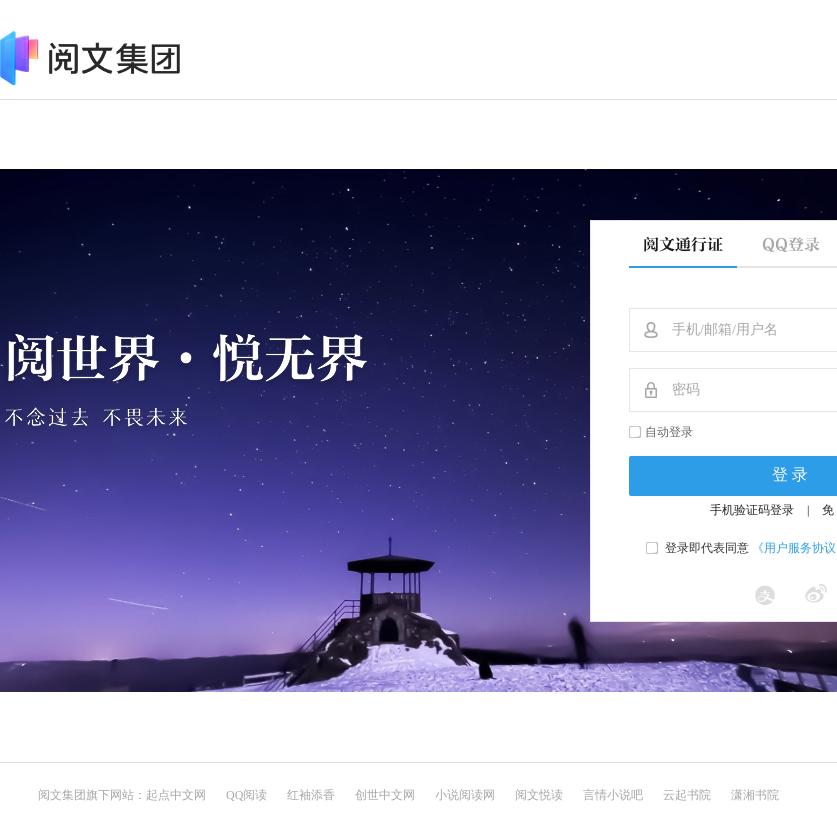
#include <cairo.h>
#include <math.h>
#include <stddef.h>

typedef struct { const char *family; double size; int italic, bold; unsigned color; } style_t;
static cairo_t *ctx;

static void ink(unsigned color) {
    cairo_set_source_rgb(ctx, (color >> 16) / 255.0, (color >> 8 & 255) / 255.0, (color & 255) / 255.0);
}

static void write(double x, double y, const char *s, const style_t *st) {
    cairo_select_font_face(ctx, st->family, st->italic ? CAIRO_FONT_SLANT_ITALIC : CAIRO_FONT_SLANT_NORMAL,
        st->bold ? CAIRO_FONT_WEIGHT_BOLD : CAIRO_FONT_WEIGHT_NORMAL);
    cairo_set_font_size(ctx, st->size);
    ink(st->color);
    cairo_move_to(ctx, x, y);
    cairo_show_text(ctx, s);
}

static void write_spaced(double x, double y, const char *s, double letter, double word) {
    cairo_move_to(ctx, x, y);
    while (*s) {
        char ch[5] = {0};
        int n = 0;
        do ch[n++] = *s++; while ((*s & 0xC0) == 0x80);
        cairo_show_text(ctx, ch);
        cairo_rel_move_to(ctx, letter + word * (*ch == ' '), 0);
    }
}

static void block(double x, double y, double w, double h, unsigned color) {
    ink(color);
    cairo_rectangle(ctx, x, y, w, h);
    cairo_fill(ctx);
}

static void round_path(double x, double y, double w, double h, double r) {
    cairo_new_sub_path(ctx);
    cairo_arc(ctx, x + w - r, y + h - r, r, 0, M_PI / 2);
    cairo_arc(ctx, x + r, y + h - r, r, M_PI / 2, M_PI);
    cairo_arc(ctx, x + r, y + r, r, M_PI, 1.5 * M_PI);
    cairo_arc(ctx, x + w - r, y + r, r, 1.5 * M_PI, 2 * M_PI);
    cairo_close_path(ctx);
}

static void paste(const char *path, double x, double y, double w, double h) {
    cairo_surface_t *image = cairo_image_surface_create_from_png(path);
    cairo_save(ctx);
    cairo_set_source_surface(ctx, image, x, y);
    cairo_rectangle(ctx, x, y, w, h);
    cairo_fill(ctx);
    cairo_restore(ctx);
    cairo_surface_destroy(image);
}

static const style_t s1 = {"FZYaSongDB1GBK", 16, 0, 0, 0x1a1a1a};
static const style_t s2 = {"FZYaSongDB1GBK", 16, 0, 0, 0xa6a6a6};
static const style_t s3 = {"WenQuanYi Zen Hei Medium", 14, 0, 0, 0xa6a6a6};
static const style_t s4 = {"Liberation Serif", 14, 0, 0, 0xa6a6a6};
static const style_t s5 = {"WenQuanYi Zen Hei Medium", 12, 0, 0, 0x666666};
static const style_t s6 = {"WenQuanYi Zen Hei Medium", 12, 0, 0, 0x262626};
static const style_t s7 = {"Liberation Serif", 12, 0, 0, 0x1a1a1a};
static const style_t s8 = {"WenQuanYi Zen Hei Medium", 12, 0, 0, 0x333333};
static const style_t s9 = {"WenQuanYi Zen Hei Medium", 12, 0, 0, 0x2e9de7};
static const style_t s10 = {"WenQuanYi Zen Hei Medium", 12, 0, 0, 0xa6a6a6};
static const style_t s11 = {"Liberation Serif", 12, 0, 0, 0xa6a6a6};

int main(void) {
    cairo_surface_t *surface = cairo_image_surface_create(CAIRO_FORMAT_RGB24, 837, 815);
    ctx = cairo_create(surface);
    cairo_font_options_t *options = cairo_font_options_create();
    cairo_font_options_set_hint_metrics(options, CAIRO_HINT_METRICS_OFF);
    cairo_font_options_set_hint_style(options, CAIRO_HINT_STYLE_NONE);
    cairo_set_font_options(ctx, options);
    cairo_set_miter_limit(ctx, 4);
    ink(0xffffff);
    cairo_paint(ctx);
    block(0, 99, 837, 1, 0xdfdfdf);
    paste("pic1.png", 0, 31, 180, 55);
    paste("pic2.png", 0, 169, 837, 523);
    paste("pic3.png", 5, 333, 363, 97);
    ink(0xffffff);
    cairo_rectangle(ctx, 590.5, 220.5, 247, 401);
    cairo_fill_preserve(ctx);
    ink(0xe6e6e6);
    cairo_set_line_width(ctx, 1);
    cairo_stroke(ctx);
    block(737, 266, 100, 2, 0xe6e6e6);
    block(629, 266, 108, 2, 0x2e9de7);
    write(643, 250, "阅文通行证", &s1);
    write(762, 250, "QQ登录", &s2);
    cairo_rectangle(ctx, 629.5, 308.5, 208, 43);
    ink(0xe6e6e6);
    cairo_stroke(ctx);
    paste("pic4.png", 644, 322, 14, 16);
    write(672, 334, "手机", &s3);
    write(700, 334, "/", &s4);
    write(704, 334, "邮箱", &s3);
    write(732, 334, "/", &s4);
    write(736, 334, "用户名", &s3);
    cairo_rectangle(ctx, 629.5, 368.5, 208, 43);
    ink(0xe6e6e6);
    cairo_stroke(ctx);
    paste("pic5.png", 645, 382, 12, 16);
    write(672, 394, "密码", &s3);
    ink(0xbfbfbf);
    cairo_new_path(ctx);
    cairo_move_to(ctx, 640.5, 427);
    cairo_curve_to(ctx, 641, 429, 641.5, 435, 640, 436);
    cairo_curve_to(ctx, 639, 437, 631.5, 437.5, 630, 437);
    cairo_line_to(ctx, 629, 435.5);
    cairo_curve_to(ctx, 629, 439, 632.5, 438, 635, 438);
    cairo_curve_to(ctx, 641.5, 438, 641, 438.5, 641, 432);
    cairo_curve_to(ctx, 641, 430.5, 641.5, 428, 640.5, 427);
    cairo_close_path(ctx);
    cairo_fill(ctx);
    cairo_new_path(ctx);
    cairo_move_to(ctx, 636, 438);
    cairo_curve_to(ctx, 641.5, 438, 641, 437.5, 641, 432);
    cairo_curve_to(ctx, 641, 429, 642, 426, 638, 426);
    cairo_curve_to(ctx, 639.5, 426.5, 640, 428, 640, 433);
    cairo_curve_to(ctx, 640, 436, 640, 438, 636, 438);
    cairo_close_path(ctx);
    cairo_fill(ctx);
    cairo_set_fill_rule(ctx, CAIRO_FILL_RULE_EVEN_ODD);
    cairo_new_path(ctx);
    cairo_move_to(ctx, 631, 426);
    cairo_curve_to(ctx, 628, 426, 629, 430.5, 629, 432);
    cairo_curve_to(ctx, 629, 435, 628, 438, 632, 438);
    cairo_curve_to(ctx, 631, 438, 630.5, 437.5, 630, 437);
    cairo_curve_to(ctx, 629.5, 436, 630, 427.5, 630, 427);
    cairo_curve_to(ctx, 630.5, 426.5, 631, 426, 632, 426);
    cairo_close_path(ctx);
    cairo_move_to(ctx, 638, 438);
    cairo_line_to(ctx, 640, 438);
    cairo_close_path(ctx);
    cairo_fill(ctx);
    cairo_set_fill_rule(ctx, CAIRO_FILL_RULE_WINDING);
    cairo_new_path(ctx);
    cairo_move_to(ctx, 631, 427);
    cairo_curve_to(ctx, 633, 427, 638.5, 426, 640, 427.5);
    cairo_curve_to(ctx, 641, 428.5, 641, 430.5, 641, 431.5);
    cairo_line_to(ctx, 641, 437);
    cairo_line_to(ctx, 641, 432);
    cairo_curve_to(ctx, 641, 425.5, 641.5, 426, 635, 426);
    cairo_curve_to(ctx, 632, 426, 629, 425, 629, 429);
    cairo_curve_to(ctx, 629, 428, 630, 427, 631, 427);
    cairo_close_path(ctx);
    cairo_fill(ctx);
    write(645, 436, "自动登录", &s5);
    ink(0x2e9de7);
    round_path(629, 456, 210, 40, 2);
    cairo_fill(ctx);
    cairo_set_font_size(ctx, 16);
    ink(0xffffff);
    write_spaced(772, 480, "登 录", 0, -1);
    write(710, 514, "手机验证码登录", &s6);
    write(807, 514, "|", &s7);
    write(822, 514, "免", &s6);
    ink(0xbfbfbf);
    cairo_new_path(ctx);
    cairo_move_to(ctx, 657.5, 543);
    cairo_curve_to(ctx, 658, 545, 658.5, 551, 657, 552);
    cairo_curve_to(ctx, 656, 553, 648.5, 553.5, 647, 553);
    cairo_line_to(ctx, 646, 551.5);
    cairo_curve_to(ctx, 646, 555, 649.5, 554, 652, 554);
    cairo_curve_to(ctx, 658.5, 554, 658, 554.5, 658, 548);
    cairo_curve_to(ctx, 658, 546.5, 658.5, 544, 657.5, 543);
    cairo_close_path(ctx);
    cairo_fill(ctx);
    cairo_new_path(ctx);
    cairo_move_to(ctx, 653, 554);
    cairo_curve_to(ctx, 658.5, 554, 658, 553.5, 658, 548);
    cairo_curve_to(ctx, 658, 545, 659, 542, 655, 542);
    cairo_curve_to(ctx, 656.5, 542.5, 657, 544, 657, 549);
    cairo_curve_to(ctx, 657, 552, 657, 554, 653, 554);
    cairo_close_path(ctx);
    cairo_fill(ctx);
    cairo_set_fill_rule(ctx, CAIRO_FILL_RULE_EVEN_ODD);
    cairo_new_path(ctx);
    cairo_move_to(ctx, 648, 542);
    cairo_curve_to(ctx, 645, 542, 646, 546.5, 646, 548);
    cairo_curve_to(ctx, 646, 551, 645, 554, 649, 554);
    cairo_curve_to(ctx, 648, 554, 647.5, 553.5, 647, 553);
    cairo_curve_to(ctx, 646.5, 552, 647, 543.5, 647, 543);
    cairo_curve_to(ctx, 647.5, 542.5, 648, 542, 649, 542);
    cairo_close_path(ctx);
    cairo_move_to(ctx, 655, 554);
    cairo_line_to(ctx, 657, 554);
    cairo_close_path(ctx);
    cairo_fill(ctx);
    cairo_set_fill_rule(ctx, CAIRO_FILL_RULE_WINDING);
    cairo_new_path(ctx);
    cairo_move_to(ctx, 648, 543);
    cairo_curve_to(ctx, 650, 543, 655.5, 542, 657, 543.5);
    cairo_curve_to(ctx, 658, 544.5, 658, 546.5, 658, 547.5);
    cairo_line_to(ctx, 658, 553);
    cairo_line_to(ctx, 658, 548);
    cairo_curve_to(ctx, 658, 541.5, 658.5, 542, 652, 542);
    cairo_curve_to(ctx, 649, 542, 646, 541, 646, 545);
    cairo_curve_to(ctx, 646, 544, 647, 543, 648, 543);
    cairo_close_path(ctx);
    cairo_fill(ctx);
    write(665, 552, "登录即代表同意", &s8);
    write(752, 552, "《用户服务协议", &s9);
    paste("pic6.png", 755, 585, 20, 20);
    paste("pic7.png", 805, 584, 22, 19);
    block(0, 762, 837, 1, 0xdfdfdf);
    write(38, 799, "阅文集团旗下网站：起点中文网", &s10);
    write(226, 799, "QQ", &s11);
    write(243, 799, "阅读", &s10);
    write(287, 799, "红袖添香", &s10);
    write(355, 799, "创世中文网", &s10);
    write(435, 799, "小说阅读网", &s10);
    write(515, 799, "阅文悦读", &s10);
    write(583, 799, "言情小说吧", &s10);
    write(663, 799, "云起书院", &s10);
    write(731, 799, "潇湘书院", &s10);
    cairo_surface_write_to_png(surface, "screenshot.png");
    cairo_font_options_destroy(options);
    cairo_destroy(ctx);
    cairo_surface_destroy(surface);
    return 0;
}
